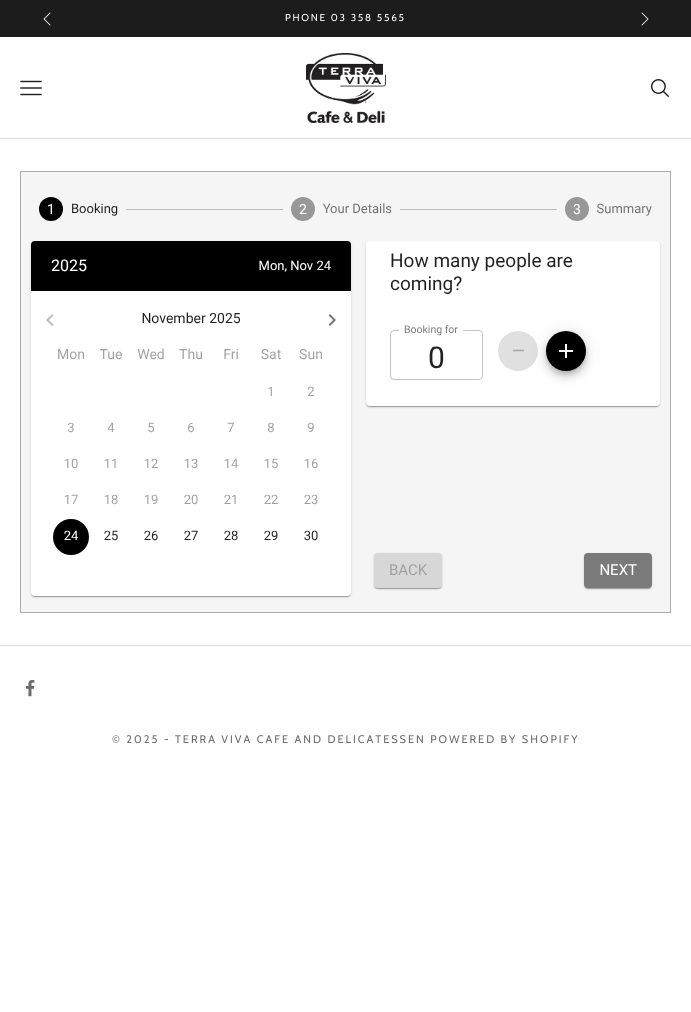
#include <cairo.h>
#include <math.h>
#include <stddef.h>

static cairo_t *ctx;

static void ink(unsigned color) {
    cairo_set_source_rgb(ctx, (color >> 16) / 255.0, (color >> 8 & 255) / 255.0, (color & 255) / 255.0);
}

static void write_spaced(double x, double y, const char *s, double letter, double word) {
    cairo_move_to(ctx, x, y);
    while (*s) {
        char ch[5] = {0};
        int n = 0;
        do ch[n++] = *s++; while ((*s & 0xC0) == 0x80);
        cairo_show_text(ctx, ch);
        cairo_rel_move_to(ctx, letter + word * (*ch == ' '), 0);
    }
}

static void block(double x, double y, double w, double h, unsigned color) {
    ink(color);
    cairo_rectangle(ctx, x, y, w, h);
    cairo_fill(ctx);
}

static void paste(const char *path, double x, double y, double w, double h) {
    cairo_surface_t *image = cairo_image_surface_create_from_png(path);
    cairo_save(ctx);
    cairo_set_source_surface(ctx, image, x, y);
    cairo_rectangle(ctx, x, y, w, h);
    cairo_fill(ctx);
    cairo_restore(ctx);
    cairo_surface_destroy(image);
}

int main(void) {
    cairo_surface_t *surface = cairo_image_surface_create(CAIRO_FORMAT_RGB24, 691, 1012);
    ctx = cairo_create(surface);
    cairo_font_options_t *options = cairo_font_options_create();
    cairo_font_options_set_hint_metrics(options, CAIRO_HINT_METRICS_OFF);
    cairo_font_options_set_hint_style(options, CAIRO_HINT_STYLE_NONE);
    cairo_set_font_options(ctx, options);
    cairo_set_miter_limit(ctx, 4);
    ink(0xffffff);
    cairo_paint(ctx);
    block(0, 0, 691, 37, 0x1c1c1c);
    cairo_new_path(ctx);
    cairo_move_to(ctx, 50, 13);
    cairo_line_to(ctx, 44, 19);
    cairo_line_to(ctx, 50, 25);
    ink(0xffffff);
    cairo_set_line_width(ctx, 0.8);
    cairo_set_line_cap(ctx, CAIRO_LINE_CAP_SQUARE);
    cairo_stroke(ctx);
    cairo_select_font_face(ctx, "Cabin", CAIRO_FONT_SLANT_NORMAL, CAIRO_FONT_WEIGHT_NORMAL);
    cairo_set_font_size(ctx, 10);
    write_spaced(285, 21, "PHONE 03 358 5565", 1.75, 0);
    cairo_new_path(ctx);
    cairo_move_to(ctx, 642, 25);
    cairo_line_to(ctx, 648, 19);
    cairo_line_to(ctx, 642, 13);
    cairo_stroke(ctx);
    block(0, 138, 691, 1, 0xdddddd);
    cairo_new_path(ctx);
    cairo_move_to(ctx, 21, 94.5);
    cairo_line_to(ctx, 41, 94.5);
    cairo_move_to(ctx, 21, 88);
    cairo_line_to(ctx, 41, 88);
    cairo_move_to(ctx, 21, 81.5);
    cairo_line_to(ctx, 41, 81.5);
    ink(0x1c1c1c);
    cairo_set_line_width(ctx, 1.4);
    cairo_stroke(ctx);
    paste("pic1.png", 306, 53, 80, 70);
    paste("pic2.png", 651, 79, 18, 18);
    cairo_rectangle(ctx, 20.5, 171.5, 650, 441);
    ink(0xababab);
    cairo_set_line_width(ctx, 1);
    cairo_set_line_cap(ctx, CAIRO_LINE_CAP_BUTT);
    cairo_stroke(ctx);
    paste("pic3.png", 21, 172, 649, 440);
    block(0, 645, 691, 1, 0xdddddd);
    paste("pic4.png", 26, 680, 9, 17);
    cairo_set_font_size(ctx, 11);
    ink(0x6b6b6b);
    write_spaced(112, 743, "© 2025 - TERRA VIVA CAFE AND DELICATESSEN POWERED BY SHOPIFY", 1.98, 0);
    cairo_surface_write_to_png(surface, "screenshot.png");
    cairo_font_options_destroy(options);
    cairo_destroy(ctx);
    cairo_surface_destroy(surface);
    return 0;
}
